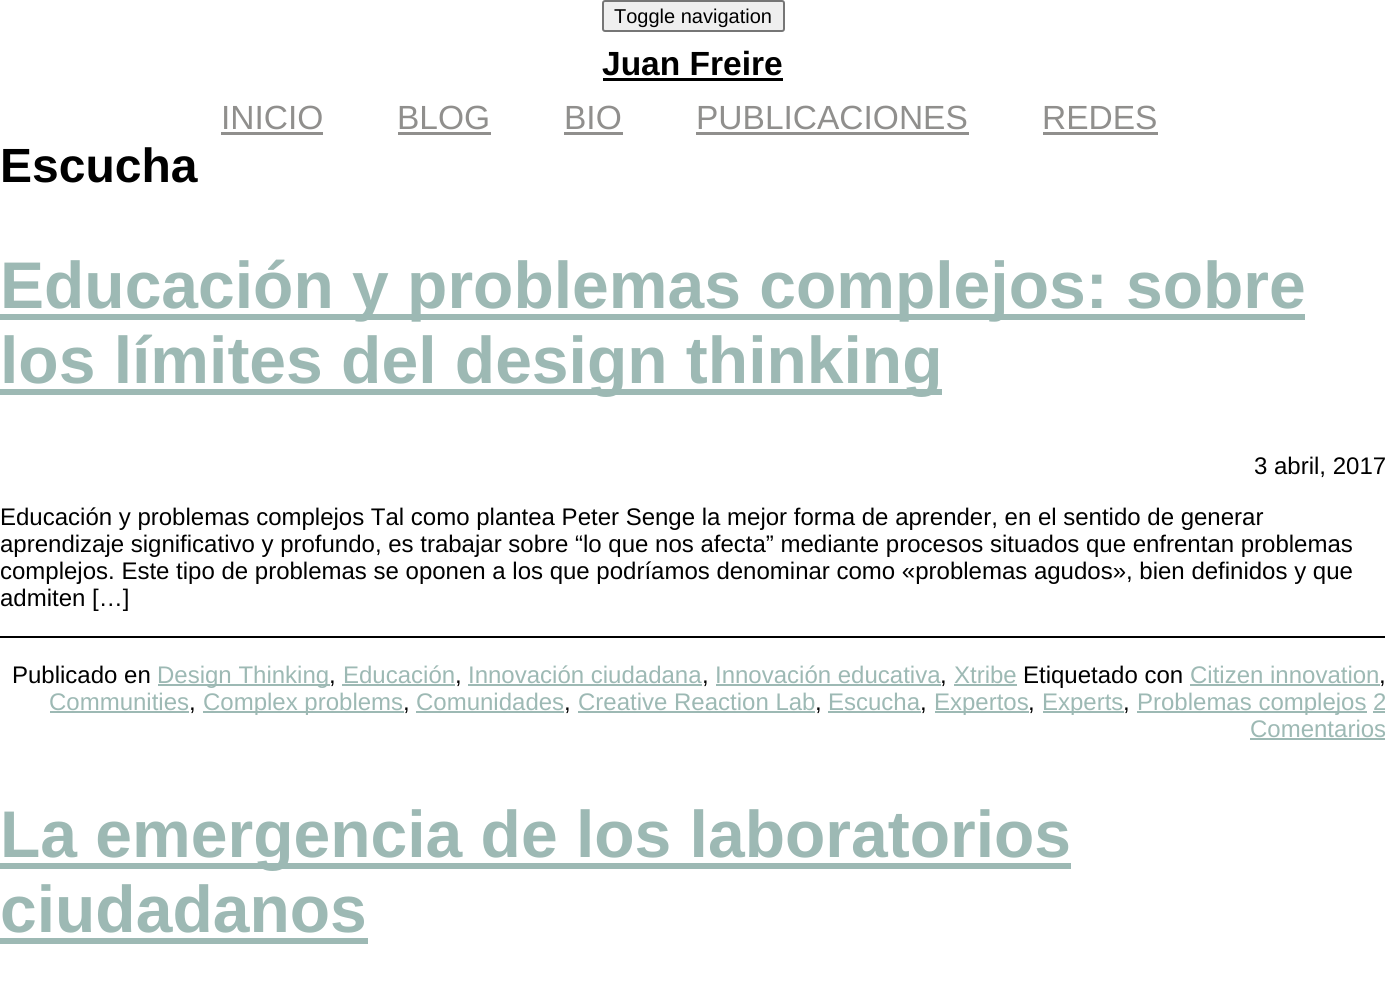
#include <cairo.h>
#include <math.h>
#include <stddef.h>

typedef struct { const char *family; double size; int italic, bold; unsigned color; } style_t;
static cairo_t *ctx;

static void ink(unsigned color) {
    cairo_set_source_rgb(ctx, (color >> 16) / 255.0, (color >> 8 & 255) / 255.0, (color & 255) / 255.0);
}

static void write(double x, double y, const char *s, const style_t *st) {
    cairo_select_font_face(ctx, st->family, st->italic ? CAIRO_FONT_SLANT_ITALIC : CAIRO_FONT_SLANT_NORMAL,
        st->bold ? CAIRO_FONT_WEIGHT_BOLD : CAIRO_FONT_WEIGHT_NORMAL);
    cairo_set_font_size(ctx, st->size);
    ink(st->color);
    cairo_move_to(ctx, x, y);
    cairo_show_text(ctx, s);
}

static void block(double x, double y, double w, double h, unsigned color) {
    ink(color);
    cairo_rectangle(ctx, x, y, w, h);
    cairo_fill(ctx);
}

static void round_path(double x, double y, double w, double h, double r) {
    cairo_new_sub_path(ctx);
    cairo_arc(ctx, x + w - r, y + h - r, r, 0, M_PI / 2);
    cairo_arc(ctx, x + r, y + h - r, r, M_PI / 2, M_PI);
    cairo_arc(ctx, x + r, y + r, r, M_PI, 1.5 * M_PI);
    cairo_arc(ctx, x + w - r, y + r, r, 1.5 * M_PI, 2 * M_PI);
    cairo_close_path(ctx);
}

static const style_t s1 = {"Liberation Sans", 20, 0, 0, 0x000000};
static const style_t s2 = {"Liberation Sans", 33.5, 0, 1, 0x000000};
static const style_t s3 = {"Liberation Sans", 33.5, 0, 0, 0x908f8d};
static const style_t s4 = {"Liberation Sans", 48, 0, 1, 0x000000};
static const style_t s5 = {"Liberation Sans", 66, 0, 1, 0x9db9b4};
static const style_t s6 = {"Liberation Sans", 24, 0, 0, 0x000000};
static const style_t s7 = {"Liberation Sans", 24, 0, 0, 0x9db9b4};

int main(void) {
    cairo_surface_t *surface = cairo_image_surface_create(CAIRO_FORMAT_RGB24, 1385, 1001);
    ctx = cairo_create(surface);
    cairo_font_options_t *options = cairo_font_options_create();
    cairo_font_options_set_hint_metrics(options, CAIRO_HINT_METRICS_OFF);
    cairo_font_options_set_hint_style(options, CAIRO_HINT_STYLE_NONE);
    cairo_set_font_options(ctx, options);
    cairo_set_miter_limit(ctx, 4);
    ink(0xffffff);
    cairo_paint(ctx);
    ink(0xefefef);
    round_path(603, 1, 181, 30, 2);
    cairo_fill_preserve(ctx);
    ink(0x767676);
    cairo_stroke(ctx);
    write(614, 23, "Toggle navigation", &s1);
    write(602, 75, "Juan Freire", &s2);
    block(603, 78, 180, 3, 0x000000);
    write(221, 129, "INICIO", &s3);
    block(221, 132, 102, 3, 0x908f8d);
    write(397, 129, "BLOG", &s3);
    block(398, 132, 93, 3, 0x908f8d);
    write(564, 129, "BIO", &s3);
    block(564, 132, 59, 3, 0x908f8d);
    write(696, 129, "PUBLICACIONES", &s3);
    block(696, 132, 273, 3, 0x908f8d);
    write(1042, 129, "REDES", &s3);
    block(1043, 132, 115, 3, 0x908f8d);
    write(0, 182, "Escucha", &s4);
    block(0, 314, 1305, 6, 0x9db9b4);
    write(0, 308, "Educación y problemas complejos: sobre", &s5);
    block(0, 389, 942, 6, 0x9db9b4);
    write(0, 383, "los límites del design thinking", &s5);
    write(1254, 474, "3 abril, 2017", &s6);
    write(0, 525, "Educación y problemas complejos Tal como plantea Peter Senge la mejor forma de aprender, en el sentido de generar", &s6);
    write(0, 552, "aprendizaje significativo y profundo, es trabajar sobre “lo que nos afecta” mediante procesos situados que enfrentan problemas", &s6);
    write(0, 579, "complejos. Este tipo de problemas se oponen a los que podríamos denominar como «problemas agudos», bien definidos y que", &s6);
    write(0, 606, "admiten […]", &s6);
    block(0, 636, 1385, 2, 0x000000);
    write(12, 683, "Publicado en", &s6);
    block(158, 684, 172, 2, 0x9db9b4);
    write(157, 683, "Design Thinking", &s7);
    write(329, 683, ",", &s6);
    write(343, 683, "Educación", &s7);
    write(455, 683, ",", &s6);
    block(342, 684, 113, 2, 0x9db9b4);
    write(468, 683, "Innovación ciudadana", &s7);
    write(702, 683, ",", &s6);
    block(468, 684, 234, 2, 0x9db9b4);
    write(715, 683, "Innovación educativa", &s7);
    write(940, 683, ",", &s6);
    block(716, 684, 225, 2, 0x9db9b4);
    block(954, 684, 63, 2, 0x9db9b4);
    write(954, 683, "Xtribe", &s7);
    write(1023, 683, "Etiquetado con", &s6);
    write(1190, 683, "Citizen innovation", &s7);
    write(1379, 683, ",", &s6);
    block(1190, 684, 190, 2, 0x9db9b4);
    write(49, 710, "Communities", &s7);
    write(189, 710, ",", &s6);
    block(50, 711, 139, 2, 0x9db9b4);
    block(203, 711, 201, 2, 0x9db9b4);
    write(203, 710, "Complex problems", &s7);
    write(403, 710, ",", &s6);
    write(416, 710, "Comunidades", &s7);
    write(564, 710, ",", &s6);
    block(416, 711, 148, 2, 0x9db9b4);
    write(578, 710, "Creative Reaction Lab", &s7);
    write(815, 710, ",", &s6);
    block(578, 711, 237, 2, 0x9db9b4);
    write(828, 710, "Escucha", &s7);
    write(920, 710, ",", &s6);
    block(828, 711, 93, 2, 0x9db9b4);
    block(935, 711, 94, 2, 0x9db9b4);
    write(934, 710, "Expertos", &s7);
    write(1028, 710, ",", &s6);
    block(1043, 711, 81, 2, 0x9db9b4);
    write(1042, 710, "Experts", &s7);
    write(1123, 710, ",", &s6);
    block(1137, 711, 230, 2, 0x9db9b4);
    write(1137, 710, "Problemas complejos 2", &s7);
    write(1250, 737, "Comentarios", &s7);
    block(1373, 711, 12, 2, 0x9db9b4);
    block(1250, 738, 135, 2, 0x9db9b4);
    block(0, 863, 1071, 6, 0x9db9b4);
    write(0, 857, "La emergencia de los laboratorios", &s5);
    write(0, 932, "ciudadanos", &s5);
    block(0, 938, 368, 6, 0x9db9b4);
    cairo_surface_write_to_png(surface, "screenshot.png");
    cairo_font_options_destroy(options);
    cairo_destroy(ctx);
    cairo_surface_destroy(surface);
    return 0;
}
